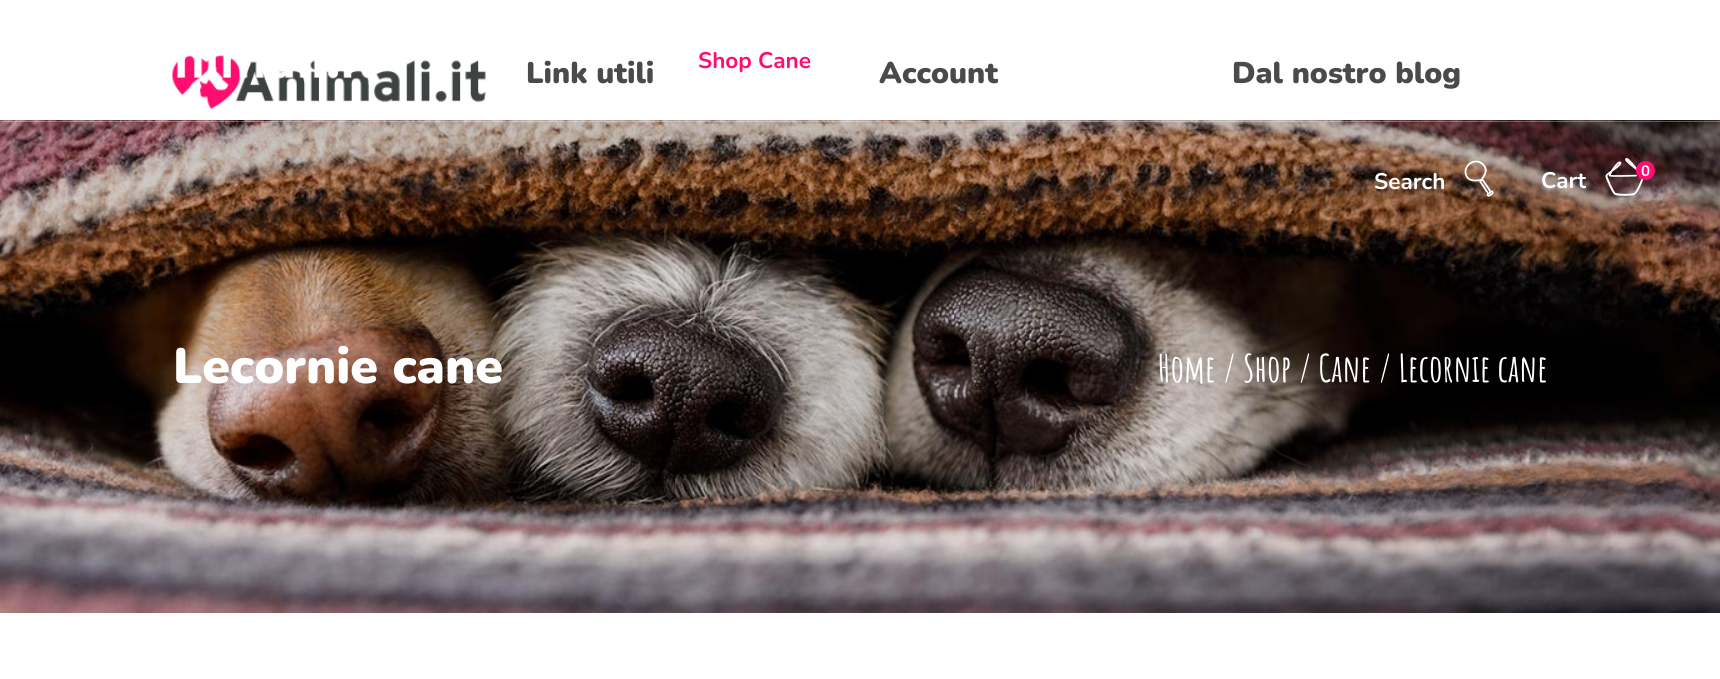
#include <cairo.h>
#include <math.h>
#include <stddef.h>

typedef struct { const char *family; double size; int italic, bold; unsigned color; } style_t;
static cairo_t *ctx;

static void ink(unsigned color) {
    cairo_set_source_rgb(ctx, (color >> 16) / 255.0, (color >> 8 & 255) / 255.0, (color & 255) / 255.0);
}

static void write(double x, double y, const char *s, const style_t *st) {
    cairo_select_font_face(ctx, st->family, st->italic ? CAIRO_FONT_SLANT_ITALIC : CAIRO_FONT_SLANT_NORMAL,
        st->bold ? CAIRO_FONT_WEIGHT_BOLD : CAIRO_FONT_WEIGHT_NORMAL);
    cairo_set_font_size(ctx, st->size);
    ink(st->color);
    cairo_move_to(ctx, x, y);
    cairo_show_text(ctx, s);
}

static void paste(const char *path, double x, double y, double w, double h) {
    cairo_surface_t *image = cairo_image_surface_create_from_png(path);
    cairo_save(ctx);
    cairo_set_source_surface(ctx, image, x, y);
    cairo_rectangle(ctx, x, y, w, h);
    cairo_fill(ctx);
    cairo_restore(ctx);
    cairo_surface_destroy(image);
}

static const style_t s1 = {"Nunito", 22.5, 0, 1, 0xff0d70};
static const style_t s2 = {"Nunito", 22.5, 0, 1, 0xffffff};
static const style_t s3 = {"Nunito", 15, 0, 1, 0xffffff};
static const style_t s4 = {"Nunito Black", 30, 0, 0, 0x4a4a4a};
static const style_t s5 = {"Nunito Black", 50, 0, 0, 0xffffff};
static const style_t s6 = {"Amatic SC", 37.5, 0, 1, 0xffffff};

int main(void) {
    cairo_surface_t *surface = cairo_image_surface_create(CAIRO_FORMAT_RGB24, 1720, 679);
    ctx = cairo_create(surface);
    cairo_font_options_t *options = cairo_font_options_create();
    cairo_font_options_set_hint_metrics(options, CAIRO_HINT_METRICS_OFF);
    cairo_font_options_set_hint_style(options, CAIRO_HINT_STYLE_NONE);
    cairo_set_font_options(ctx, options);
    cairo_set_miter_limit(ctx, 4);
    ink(0xffffff);
    cairo_paint(ctx);
    paste("pic5.png", 0, 120, 1720, 493);
    cairo_set_source_rgba(ctx, 1, 1, 1, 0.3);
    cairo_rectangle(ctx, 0, 121, 1720, 1);
    cairo_fill(ctx);
    paste("pic4.png", 172, 55, 314, 55);
    paste("pic1.png", 176, 55, 192, 24);
    write(698, 68, "Shop Cane", &s1);
    write(1374, 189, "Search", &s2);
    paste("pic2.png", 1464, 160, 30, 37);
    write(1541, 188, "Cart", &s2);
    paste("pic3.png", 1605, 158, 39, 38);
    ink(0xff0d70);
    cairo_arc(ctx, 1645.5, 170.5, 9.5, 0, 2 * M_PI);
    cairo_fill(ctx);
    write(1641, 176, "0", &s3);
    write(526, 83, "Link utili", &s4);
    write(879, 83, "Account", &s4);
    write(1232, 83, "Dal nostro blog", &s4);
    write(173, 383, "Lecornie cane", &s5);
    write(1158, 382, "Home / Shop / Cane / Lecornie cane", &s6);
    cairo_surface_write_to_png(surface, "screenshot.png");
    cairo_font_options_destroy(options);
    cairo_destroy(ctx);
    cairo_surface_destroy(surface);
    return 0;
}
